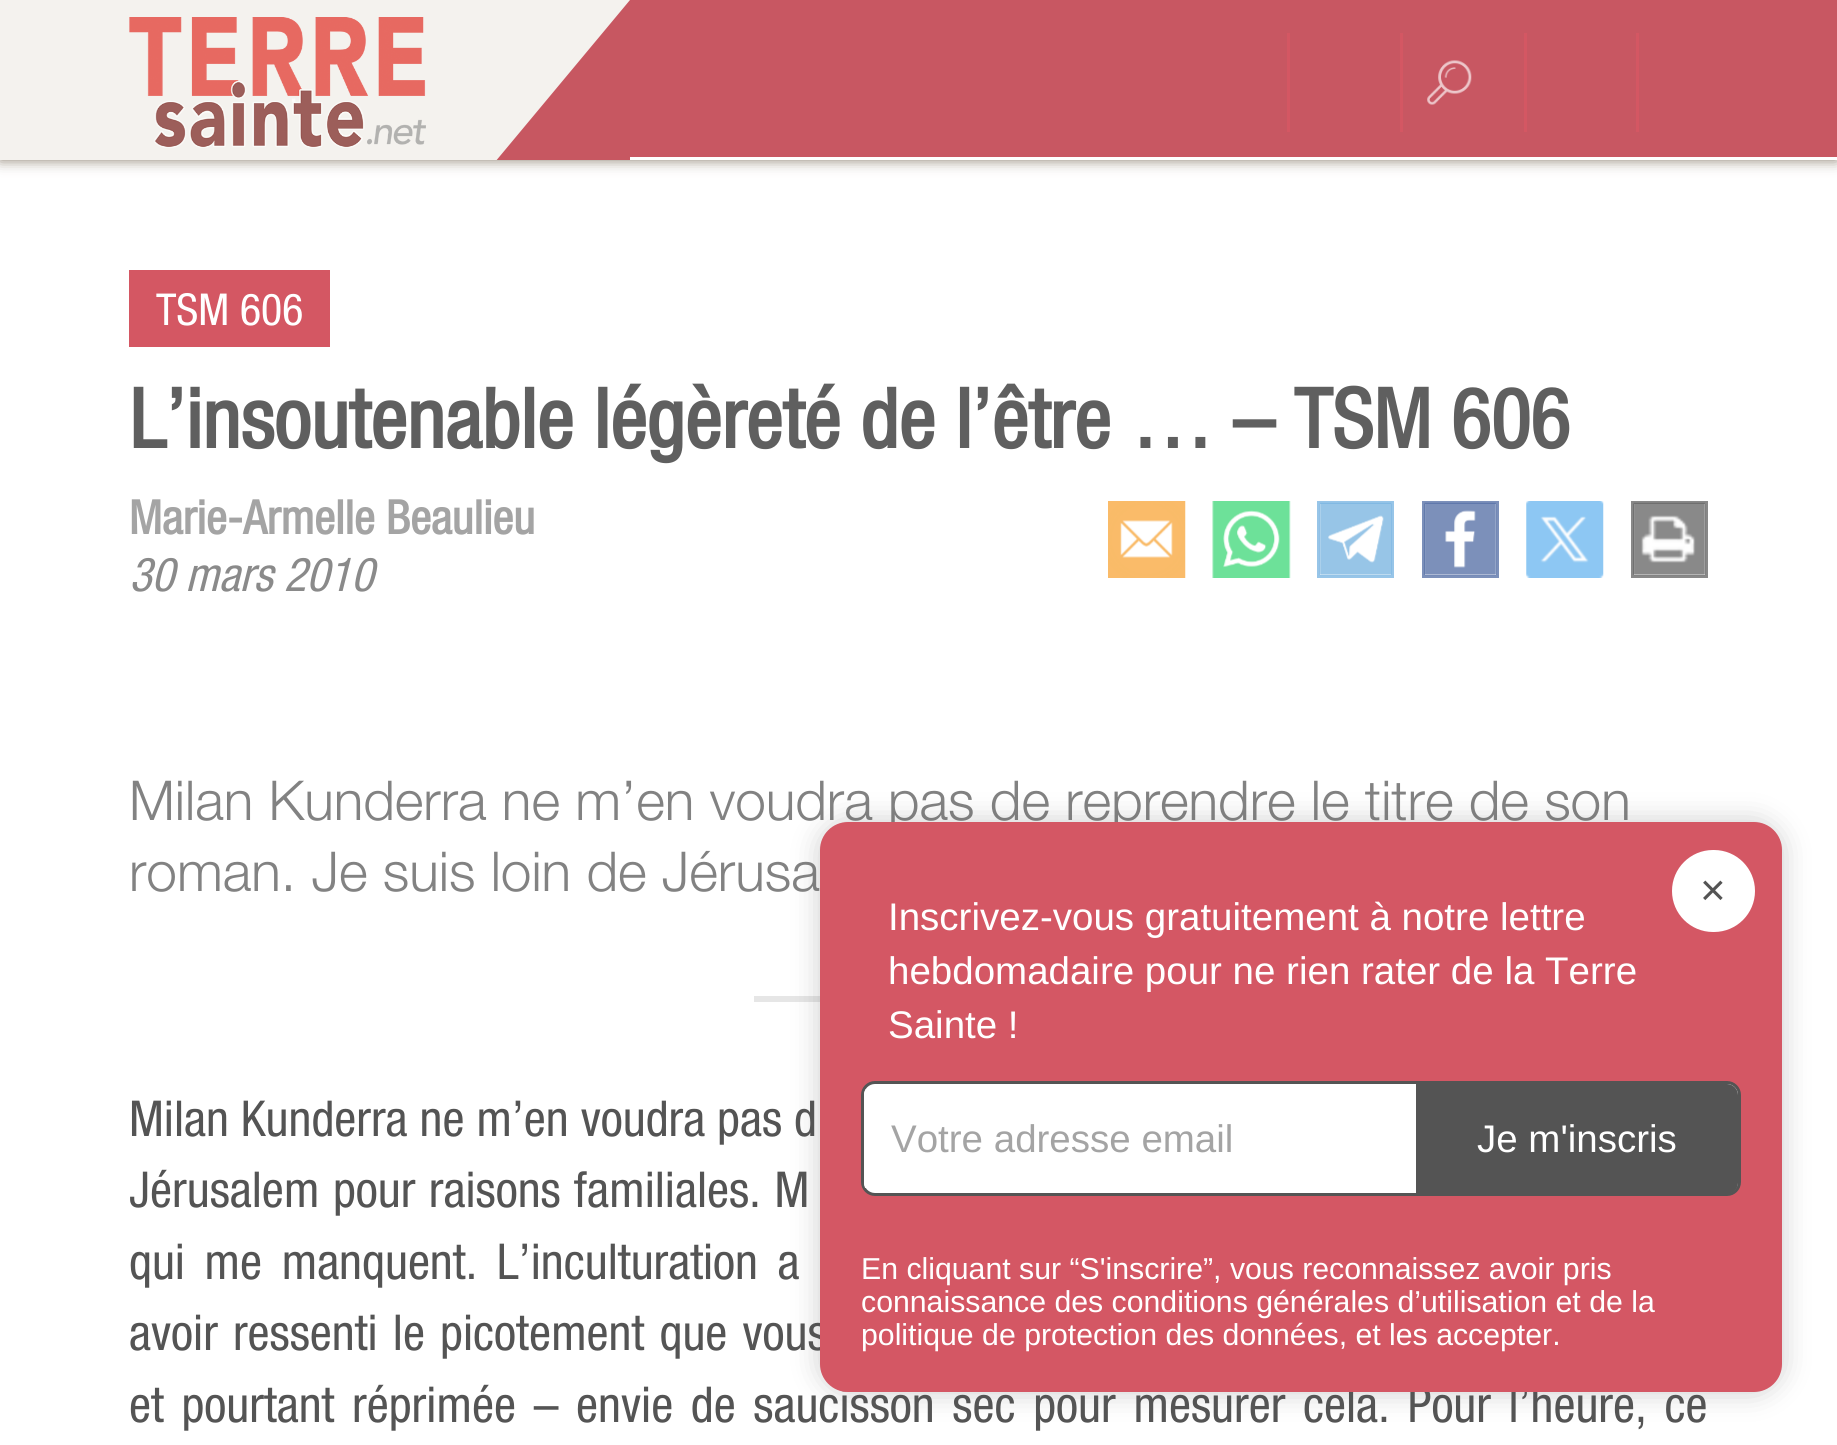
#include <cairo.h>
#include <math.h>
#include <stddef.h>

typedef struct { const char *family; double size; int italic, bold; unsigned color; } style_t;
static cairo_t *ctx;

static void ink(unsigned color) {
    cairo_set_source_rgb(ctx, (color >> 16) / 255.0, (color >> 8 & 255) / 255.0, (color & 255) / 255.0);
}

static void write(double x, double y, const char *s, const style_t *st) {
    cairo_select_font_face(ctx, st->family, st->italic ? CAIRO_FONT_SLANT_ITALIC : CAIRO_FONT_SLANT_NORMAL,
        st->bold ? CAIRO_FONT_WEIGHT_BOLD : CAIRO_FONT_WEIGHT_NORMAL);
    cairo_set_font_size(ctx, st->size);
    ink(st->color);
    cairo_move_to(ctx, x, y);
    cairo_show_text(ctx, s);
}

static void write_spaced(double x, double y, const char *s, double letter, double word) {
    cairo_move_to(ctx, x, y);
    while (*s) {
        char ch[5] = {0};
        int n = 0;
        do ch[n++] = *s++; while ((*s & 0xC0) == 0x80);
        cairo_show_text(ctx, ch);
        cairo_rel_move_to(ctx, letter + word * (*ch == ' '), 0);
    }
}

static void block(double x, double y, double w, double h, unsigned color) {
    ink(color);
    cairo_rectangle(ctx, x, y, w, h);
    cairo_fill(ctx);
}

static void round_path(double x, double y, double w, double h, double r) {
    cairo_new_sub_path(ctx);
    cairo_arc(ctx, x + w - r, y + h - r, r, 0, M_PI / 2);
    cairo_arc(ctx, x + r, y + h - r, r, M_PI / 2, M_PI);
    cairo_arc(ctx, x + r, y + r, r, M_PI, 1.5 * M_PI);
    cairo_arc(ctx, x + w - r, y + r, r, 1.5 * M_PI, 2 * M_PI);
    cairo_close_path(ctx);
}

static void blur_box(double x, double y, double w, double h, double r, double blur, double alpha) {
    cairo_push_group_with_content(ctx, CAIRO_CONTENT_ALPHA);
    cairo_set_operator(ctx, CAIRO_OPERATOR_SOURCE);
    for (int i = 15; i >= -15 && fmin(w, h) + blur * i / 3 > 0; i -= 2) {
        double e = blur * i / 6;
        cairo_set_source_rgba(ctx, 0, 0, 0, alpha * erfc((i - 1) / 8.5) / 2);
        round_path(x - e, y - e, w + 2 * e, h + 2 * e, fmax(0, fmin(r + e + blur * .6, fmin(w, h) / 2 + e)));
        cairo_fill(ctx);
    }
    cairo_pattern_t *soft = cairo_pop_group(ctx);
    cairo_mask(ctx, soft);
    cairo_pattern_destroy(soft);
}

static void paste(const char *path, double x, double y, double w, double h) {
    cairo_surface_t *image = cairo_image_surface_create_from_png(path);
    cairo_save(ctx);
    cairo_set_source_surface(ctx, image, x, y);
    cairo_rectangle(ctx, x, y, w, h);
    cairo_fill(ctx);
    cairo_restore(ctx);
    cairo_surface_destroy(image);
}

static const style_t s1 = {"Helvetica Neue Medium", 44, 0, 0, 0xffffff};
static const style_t s2 = {"Helvetica Neue", 82.5, 0, 1, 0x5f5f5f};
static const style_t s3 = {"Helvetica Neue", 46.75, 0, 1, 0xa4a4a4};
static const style_t s4 = {"Helvetica Neue Medium", 46.75, 1, 0, 0x8a8a8a};
static const style_t s5 = {"Helvetica Neue Light", 55, 0, 0, 0x828282};
static const style_t s6 = {"Helvetica Neue Medium", 49.5, 0, 0, 0x545454};
static const style_t s7 = {"Liberation Sans", 44, 0, 0, 0x545454};
static const style_t s8 = {"Liberation Sans", 38.5, 0, 0, 0xffffff};
static const style_t s9 = {"Liberation Sans", 38.5, 0, 0, 0xa4a4a4};
static const style_t s10 = {"Liberation Sans", 30.25, 0, 0, 0xffffff};

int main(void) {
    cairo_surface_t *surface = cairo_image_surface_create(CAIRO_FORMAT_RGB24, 1837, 1445);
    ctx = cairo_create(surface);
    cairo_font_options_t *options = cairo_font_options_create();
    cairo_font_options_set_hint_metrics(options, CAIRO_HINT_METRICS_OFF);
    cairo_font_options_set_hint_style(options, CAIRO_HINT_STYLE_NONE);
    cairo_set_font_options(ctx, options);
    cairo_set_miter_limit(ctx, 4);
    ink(0xffffff);
    cairo_paint(ctx);
    cairo_save(ctx);
    cairo_set_fill_rule(ctx, CAIRO_FILL_RULE_EVEN_ODD);
    cairo_new_path(ctx);
    cairo_move_to(ctx, 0, 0);
    cairo_line_to(ctx, 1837, 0);
    cairo_line_to(ctx, 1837, 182);
    cairo_line_to(ctx, 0, 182);
    cairo_close_path(ctx);
    cairo_move_to(ctx, 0, 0);
    cairo_line_to(ctx, 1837, 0);
    cairo_line_to(ctx, 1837, 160);
    cairo_line_to(ctx, 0, 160);
    cairo_close_path(ctx);
    cairo_clip(ctx);
    ink(0x8a7e6d);
    blur_box(0, 0, 1837, 160, 0, 7, 1);
    cairo_restore(ctx);
    block(0, 0, 630, 160, 0xf4f2ee);
    paste("pic1.png", 129, 17, 297, 131);
    cairo_save(ctx);
    cairo_rectangle(ctx, 0, 0, 630, 160);
    cairo_clip(ctx);
    ink(0xc75761);
    cairo_new_path(ctx);
    cairo_move_to(ctx, 630, 162);
    cairo_line_to(ctx, 495, 162);
    cairo_line_to(ctx, 630, 0);
    cairo_close_path(ctx);
    cairo_fill(ctx);
    cairo_restore(ctx);
    block(630, 0, 1207, 157, 0xc85762);
    block(1287, 33, 3, 99, 0xd45763);
    block(1400, 33, 3, 99, 0xd45763);
    paste("pic2.png", 1427, 60, 45, 45);
    block(1524, 33, 3, 99, 0xd45763);
    block(1636, 33, 3, 99, 0xd45763);
    block(129, 270, 201, 77, 0xd45763);
    write(156, 325, "TSM 606", &s1);
    write(129, 448, "L’insoutenable légèreté de l’être … – TSM 606", &s2);
    write(129, 534, "Marie-Armelle Beaulieu", &s3);
    paste("pic3.png", 1108, 501, 78, 77);
    paste("pic4.png", 1212, 501, 79, 77);
    cairo_rectangle(ctx, 1318.5, 502.5, 74, 74);
    ink(0x97c5e8);
    cairo_set_line_width(ctx, 3);
    cairo_stroke(ctx);
    paste("pic5.png", 1319, 502, 73, 74);
    cairo_rectangle(ctx, 1423.5, 502.5, 74, 74);
    ink(0x7c90ba);
    cairo_stroke(ctx);
    paste("pic6.png", 1424, 502, 73, 74);
    paste("pic7.png", 1526, 501, 78, 77);
    cairo_rectangle(ctx, 1632.5, 502.5, 74, 74);
    ink(0x888888);
    cairo_stroke(ctx);
    paste("pic8.png", 1633, 502, 73, 74);
    write(129, 591, "30 mars 2010", &s4);
    write(129, 820, "Milan Kunderra ne m’en voudra pas de reprendre le titre de son", &s5);
    write(129, 891, "roman. Je suis loin de Jérusa", &s5);
    block(754, 996, 66, 6, 0xe6e6e6);
    write(129, 1136, "Milan Kunderra ne m’en voudra pas d", &s6);
    write_spaced(129, 1207, "Jérusalem pour raisons familiales. M", 0, 1.5);
    write_spaced(129, 1279, "qui me manquent. L’inculturation a", 0, 7.5);
    write_spaced(129, 1350, "avoir ressenti le picotement que vous", 0, 3.25);
    write_spaced(129, 1422, "et pourtant réprimée – envie de saucisson sec pour mesurer cela. Pour l’heure, ce", 0, 5.75);
    ink(0x545454);
    blur_box(820, 822, 962, 570, 28, 14, 0.3);
    ink(0xd45764);
    round_path(820, 822, 962, 570, 28);
    cairo_fill(ctx);
    ink(0xffffff);
    round_path(1672, 850, 83, 82, 41);
    cairo_fill(ctx);
    write(1700, 905, "×", &s7);
    write(888, 930, "Inscrivez-vous gratuitement à notre lettre", &s8);
    write(888, 984, "hebdomadaire pour ne rien rater de la Terre", &s8);
    write(888, 1038, "Sainte !", &s8);
    round_path(862.5, 1082.5, 877, 112, 12.5);
    cairo_fill_preserve(ctx);
    ink(0x545454);
    cairo_stroke(ctx);
    cairo_save(ctx);
    round_path(864, 1084, 874, 110, 11);
    cairo_clip(ctx);
    block(864, 1089, 552, 99, 0xffffff);
    cairo_restore(ctx);
    write(891, 1152, "Votre adresse email", &s9);
    ink(0x545454);
    cairo_new_path(ctx);
    cairo_move_to(ctx, 1416, 1084);
    cairo_line_to(ctx, 1727, 1084);
    cairo_curve_to(ctx, 1733, 1084, 1738, 1089, 1738, 1095);
    cairo_line_to(ctx, 1738, 1183);
    cairo_curve_to(ctx, 1738, 1189, 1733, 1194, 1727, 1194);
    cairo_line_to(ctx, 1416, 1194);
    cairo_close_path(ctx);
    cairo_fill(ctx);
    write(1477, 1152, "Je m'inscris", &s8);
    write(861, 1279, "En cliquant sur “S'inscrire”, vous reconnaissez avoir pris", &s10);
    write(861, 1312, "connaissance des conditions générales d’utilisation et de la", &s10);
    write(861, 1345, "politique de protection des données, et les accepter.", &s10);
    cairo_surface_write_to_png(surface, "screenshot.png");
    cairo_font_options_destroy(options);
    cairo_destroy(ctx);
    cairo_surface_destroy(surface);
    return 0;
}
